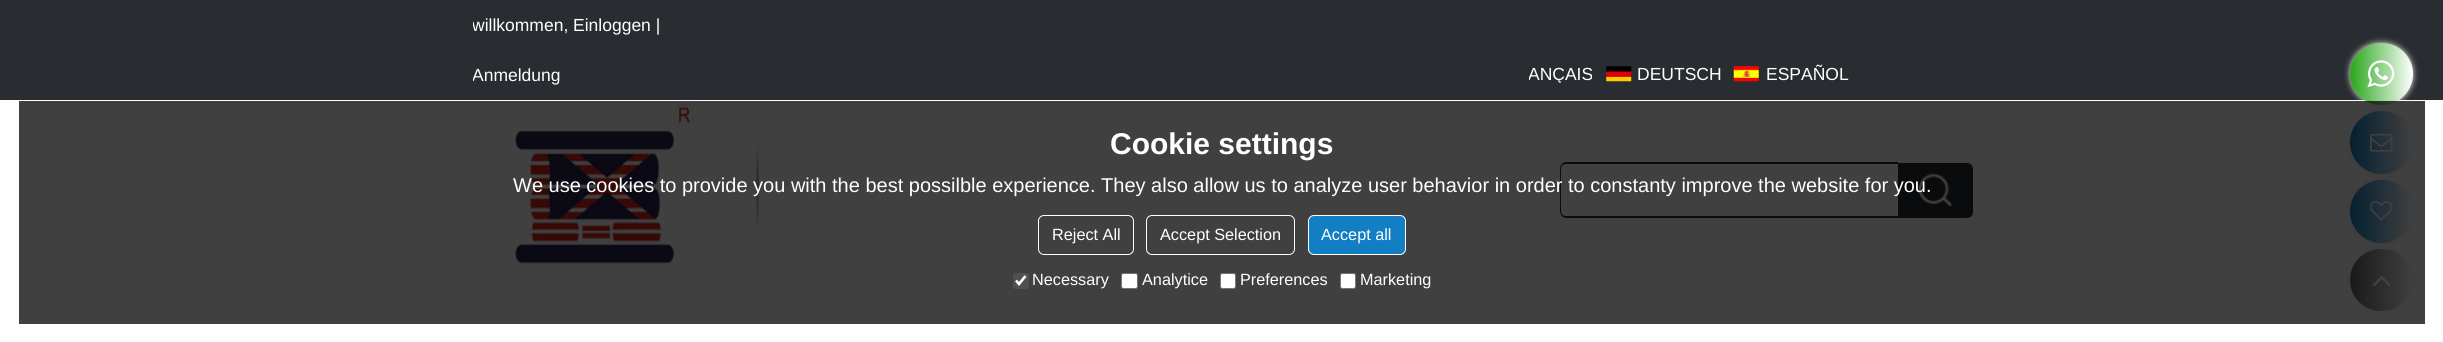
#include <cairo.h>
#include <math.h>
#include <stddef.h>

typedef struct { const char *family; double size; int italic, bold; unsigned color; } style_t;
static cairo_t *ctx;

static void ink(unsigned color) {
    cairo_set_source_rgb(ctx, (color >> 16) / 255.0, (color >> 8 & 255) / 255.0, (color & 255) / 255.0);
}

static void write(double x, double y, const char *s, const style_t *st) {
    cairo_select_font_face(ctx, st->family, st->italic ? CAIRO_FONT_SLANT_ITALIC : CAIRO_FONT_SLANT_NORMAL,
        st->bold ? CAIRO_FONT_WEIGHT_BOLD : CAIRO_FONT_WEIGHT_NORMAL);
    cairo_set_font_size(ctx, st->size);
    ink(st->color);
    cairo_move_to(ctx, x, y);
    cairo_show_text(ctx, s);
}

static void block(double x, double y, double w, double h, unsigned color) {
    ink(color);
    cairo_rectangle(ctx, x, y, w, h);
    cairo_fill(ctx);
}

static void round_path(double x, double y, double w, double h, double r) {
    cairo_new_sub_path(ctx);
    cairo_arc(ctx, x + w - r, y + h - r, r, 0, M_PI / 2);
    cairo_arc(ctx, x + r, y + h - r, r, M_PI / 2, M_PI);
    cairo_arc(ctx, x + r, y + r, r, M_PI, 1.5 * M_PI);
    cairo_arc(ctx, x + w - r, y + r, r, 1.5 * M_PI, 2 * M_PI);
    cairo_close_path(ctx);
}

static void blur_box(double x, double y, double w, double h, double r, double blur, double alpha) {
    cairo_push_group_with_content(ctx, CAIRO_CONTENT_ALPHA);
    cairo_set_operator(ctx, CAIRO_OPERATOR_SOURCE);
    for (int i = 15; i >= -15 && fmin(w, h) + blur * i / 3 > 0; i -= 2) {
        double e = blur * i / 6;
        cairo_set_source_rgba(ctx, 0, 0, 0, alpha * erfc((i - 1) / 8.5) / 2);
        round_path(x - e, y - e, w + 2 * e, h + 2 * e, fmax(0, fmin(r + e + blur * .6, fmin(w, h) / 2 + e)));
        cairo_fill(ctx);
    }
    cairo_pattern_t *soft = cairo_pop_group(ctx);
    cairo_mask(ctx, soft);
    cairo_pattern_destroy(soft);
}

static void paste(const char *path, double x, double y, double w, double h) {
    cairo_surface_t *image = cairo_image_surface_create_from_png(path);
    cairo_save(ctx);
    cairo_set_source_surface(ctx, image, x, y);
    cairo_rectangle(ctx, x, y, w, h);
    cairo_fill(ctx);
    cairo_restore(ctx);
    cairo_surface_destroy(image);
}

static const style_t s1 = {"Liberation Sans", 17.5, 0, 0, 0xffffff};
static const style_t s2 = {"Liberation Sans", 30, 0, 1, 0xffffff};
static const style_t s3 = {"Liberation Sans", 20, 0, 0, 0xffffff};
static const style_t s4 = {"Liberation Sans", 16.25, 0, 0, 0xffffff};

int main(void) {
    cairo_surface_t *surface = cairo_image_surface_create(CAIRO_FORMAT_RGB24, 2443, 342);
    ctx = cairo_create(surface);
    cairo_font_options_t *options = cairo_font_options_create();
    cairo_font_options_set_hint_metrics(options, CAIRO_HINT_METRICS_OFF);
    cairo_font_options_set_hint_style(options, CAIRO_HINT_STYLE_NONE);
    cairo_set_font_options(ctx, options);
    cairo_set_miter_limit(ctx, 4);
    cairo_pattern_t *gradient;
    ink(0xffffff);
    cairo_paint(ctx);
    block(0, 0, 2443, 100, 0x292d31);
    cairo_save(ctx);
    cairo_rectangle(ctx, 473, 0, 1500, 100);
    cairo_clip(ctx);
    write(472, 31, "willkommen,", &s1);
    cairo_restore(ctx);
    write(573, 31, "Einloggen |", &s1);
    cairo_save(ctx);
    cairo_rectangle(ctx, 473, 0, 1500, 100);
    cairo_clip(ctx);
    write(472, 81, "Anmeldung", &s1);
    cairo_restore(ctx);
    cairo_save(ctx);
    cairo_rectangle(ctx, 1529, 48, 444, 35);
    cairo_clip(ctx);
    write(1528, 80, "ANÇAIS", &s1);
    cairo_restore(ctx);
    paste("pic1.png", 1606, 66, 26, 16);
    write(1637, 80, "DEUTSCH", &s1);
    paste("pic2.png", 1733, 66, 26, 16);
    write(1766, 80, "ESPAÑOL", &s1);
    paste("pic3.png", 515, 102, 180, 162);
    paste("pic4.png", 756, 144, 3, 86);
    ink(0x292d31);
    cairo_set_fill_rule(ctx, CAIRO_FILL_RULE_EVEN_ODD);
    cairo_new_path(ctx);
    cairo_move_to(ctx, 1566, 162);
    cairo_line_to(ctx, 1898, 162);
    cairo_line_to(ctx, 1898, 218);
    cairo_line_to(ctx, 1566, 218);
    cairo_curve_to(ctx, 1563, 218, 1560, 215, 1560, 211);
    cairo_line_to(ctx, 1560, 169);
    cairo_curve_to(ctx, 1560, 165, 1563, 162, 1566, 162);
    cairo_close_path(ctx);
    cairo_move_to(ctx, 1566, 164);
    cairo_line_to(ctx, 1898, 164);
    cairo_line_to(ctx, 1898, 216);
    cairo_line_to(ctx, 1566, 216);
    cairo_curve_to(ctx, 1563, 216, 1561, 214, 1561, 211);
    cairo_line_to(ctx, 1561, 169);
    cairo_curve_to(ctx, 1561, 166, 1563, 164, 1566, 164);
    cairo_close_path(ctx);
    cairo_fill(ctx);
    cairo_new_path(ctx);
    cairo_move_to(ctx, 1898, 163);
    cairo_line_to(ctx, 1967, 163);
    cairo_curve_to(ctx, 1970.5, 163, 1973, 165.5, 1973, 169);
    cairo_line_to(ctx, 1973, 212);
    cairo_curve_to(ctx, 1973, 215.5, 1970.5, 218, 1967, 218);
    cairo_line_to(ctx, 1898, 218);
    cairo_close_path(ctx);
    cairo_fill(ctx);
    paste("pic5.png", 1918, 173, 34, 34);
    ink(0xeeeeee);
    blur_box(2350, 43, 63, 62, 31, 3, 1);
    gradient = cairo_pattern_create_linear(2350, 74, 2413, 74);
    cairo_pattern_add_color_stop_rgba(gradient, 0, 0.161, 0.651, 0.102, 1);
    cairo_pattern_add_color_stop_rgba(gradient, 1, 1, 1, 1, 1);
    cairo_set_source(ctx, gradient);
    cairo_pattern_destroy(gradient);
    round_path(2350, 43, 63, 62, 31);
    cairo_fill(ctx);
    paste("pic6.png", 2367, 60, 28, 28);
    ink(0xeeeeee);
    blur_box(2350, 111, 63, 63, 31.5, 3, 1);
    gradient = cairo_pattern_create_linear(2350, 143, 2413, 143);
    cairo_pattern_add_color_stop_rgba(gradient, 0, 0.071, 0.498, 0.773, 1);
    cairo_pattern_add_color_stop_rgba(gradient, 1, 1, 1, 1, 1);
    cairo_set_source(ctx, gradient);
    cairo_pattern_destroy(gradient);
    cairo_arc(ctx, 2381.5, 142.5, 31.5, 0, 2 * M_PI);
    cairo_fill(ctx);
    paste("pic7.png", 2370, 133, 23, 19);
    ink(0xeeeeee);
    blur_box(2350, 180, 63, 63, 31.5, 3, 1);
    gradient = cairo_pattern_create_linear(2350, 211, 2413, 211);
    cairo_pattern_add_color_stop_rgba(gradient, 0, 0.071, 0.498, 0.773, 1);
    cairo_pattern_add_color_stop_rgba(gradient, 1, 1, 1, 1, 1);
    cairo_set_source(ctx, gradient);
    cairo_pattern_destroy(gradient);
    cairo_arc(ctx, 2381.5, 211.5, 31.5, 0, 2 * M_PI);
    cairo_fill(ctx);
    paste("pic8.png", 2370, 201, 23, 20);
    ink(0xeeeeee);
    blur_box(2350, 249, 63, 62, 31, 3, 1);
    gradient = cairo_pattern_create_linear(2350, 280, 2413, 280);
    cairo_pattern_add_color_stop_rgba(gradient, 0, 0.4, 0.4, 0.4, 1);
    cairo_pattern_add_color_stop_rgba(gradient, 1, 1, 1, 1, 1);
    cairo_set_source(ctx, gradient);
    cairo_pattern_destroy(gradient);
    round_path(2350, 249, 63, 62, 31);
    cairo_fill(ctx);
    paste("pic9.png", 2372, 275, 19, 12);
    cairo_set_source_rgba(ctx, 0, 0, 0, 0.75);
    cairo_rectangle(ctx, 19, 101, 2406, 223);
    cairo_fill(ctx);
    write(1110, 154, "Cookie settings", &s2);
    write(513, 192, "We use cookies to provide you with the best possilble experience. They also allow us to analyze user behavior in order to constanty improve the website for you.", &s3);
    round_path(1038.5, 215.5, 95, 39, 5.5);
    cairo_set_line_width(ctx, 1);
    cairo_stroke(ctx);
    write(1052, 240, "Reject All", &s4);
    round_path(1146.5, 215.5, 148, 39, 5.5);
    cairo_stroke(ctx);
    write(1160, 240, "Accept Selection", &s4);
    ink(0x127fc5);
    round_path(1308.5, 215.5, 97, 39, 5.5);
    cairo_fill_preserve(ctx);
    ink(0xffffff);
    cairo_stroke(ctx);
    write(1321, 240, "Accept all", &s4);
    cairo_set_source_rgba(ctx, 0.463, 0.463, 0.463, 0.3);
    round_path(1013, 273, 16, 16, 2.5);
    cairo_fill(ctx);
    cairo_new_path(ctx);
    cairo_move_to(ctx, 1016, 280.5);
    cairo_line_to(ctx, 1019, 284);
    cairo_line_to(ctx, 1025.5, 276);
    ink(0xffffff);
    cairo_set_line_width(ctx, 2.6);
    cairo_stroke(ctx);
    write(1032, 285, "Necessary", &s4);
    round_path(1121.5, 273.5, 16, 15, 2);
    cairo_fill_preserve(ctx);
    ink(0x767676);
    cairo_set_line_width(ctx, 1);
    cairo_stroke(ctx);
    write(1142, 285, "Analytice", &s4);
    round_path(1220.5, 273.5, 15, 15, 2);
    cairo_fill_preserve(ctx);
    ink(0x767676);
    cairo_stroke(ctx);
    write(1240, 285, "Preferences", &s4);
    round_path(1340.5, 273.5, 15, 15, 2);
    cairo_fill_preserve(ctx);
    ink(0x767676);
    cairo_stroke(ctx);
    write(1360, 285, "Marketing", &s4);
    cairo_surface_write_to_png(surface, "screenshot.png");
    cairo_font_options_destroy(options);
    cairo_destroy(ctx);
    cairo_surface_destroy(surface);
    return 0;
}
